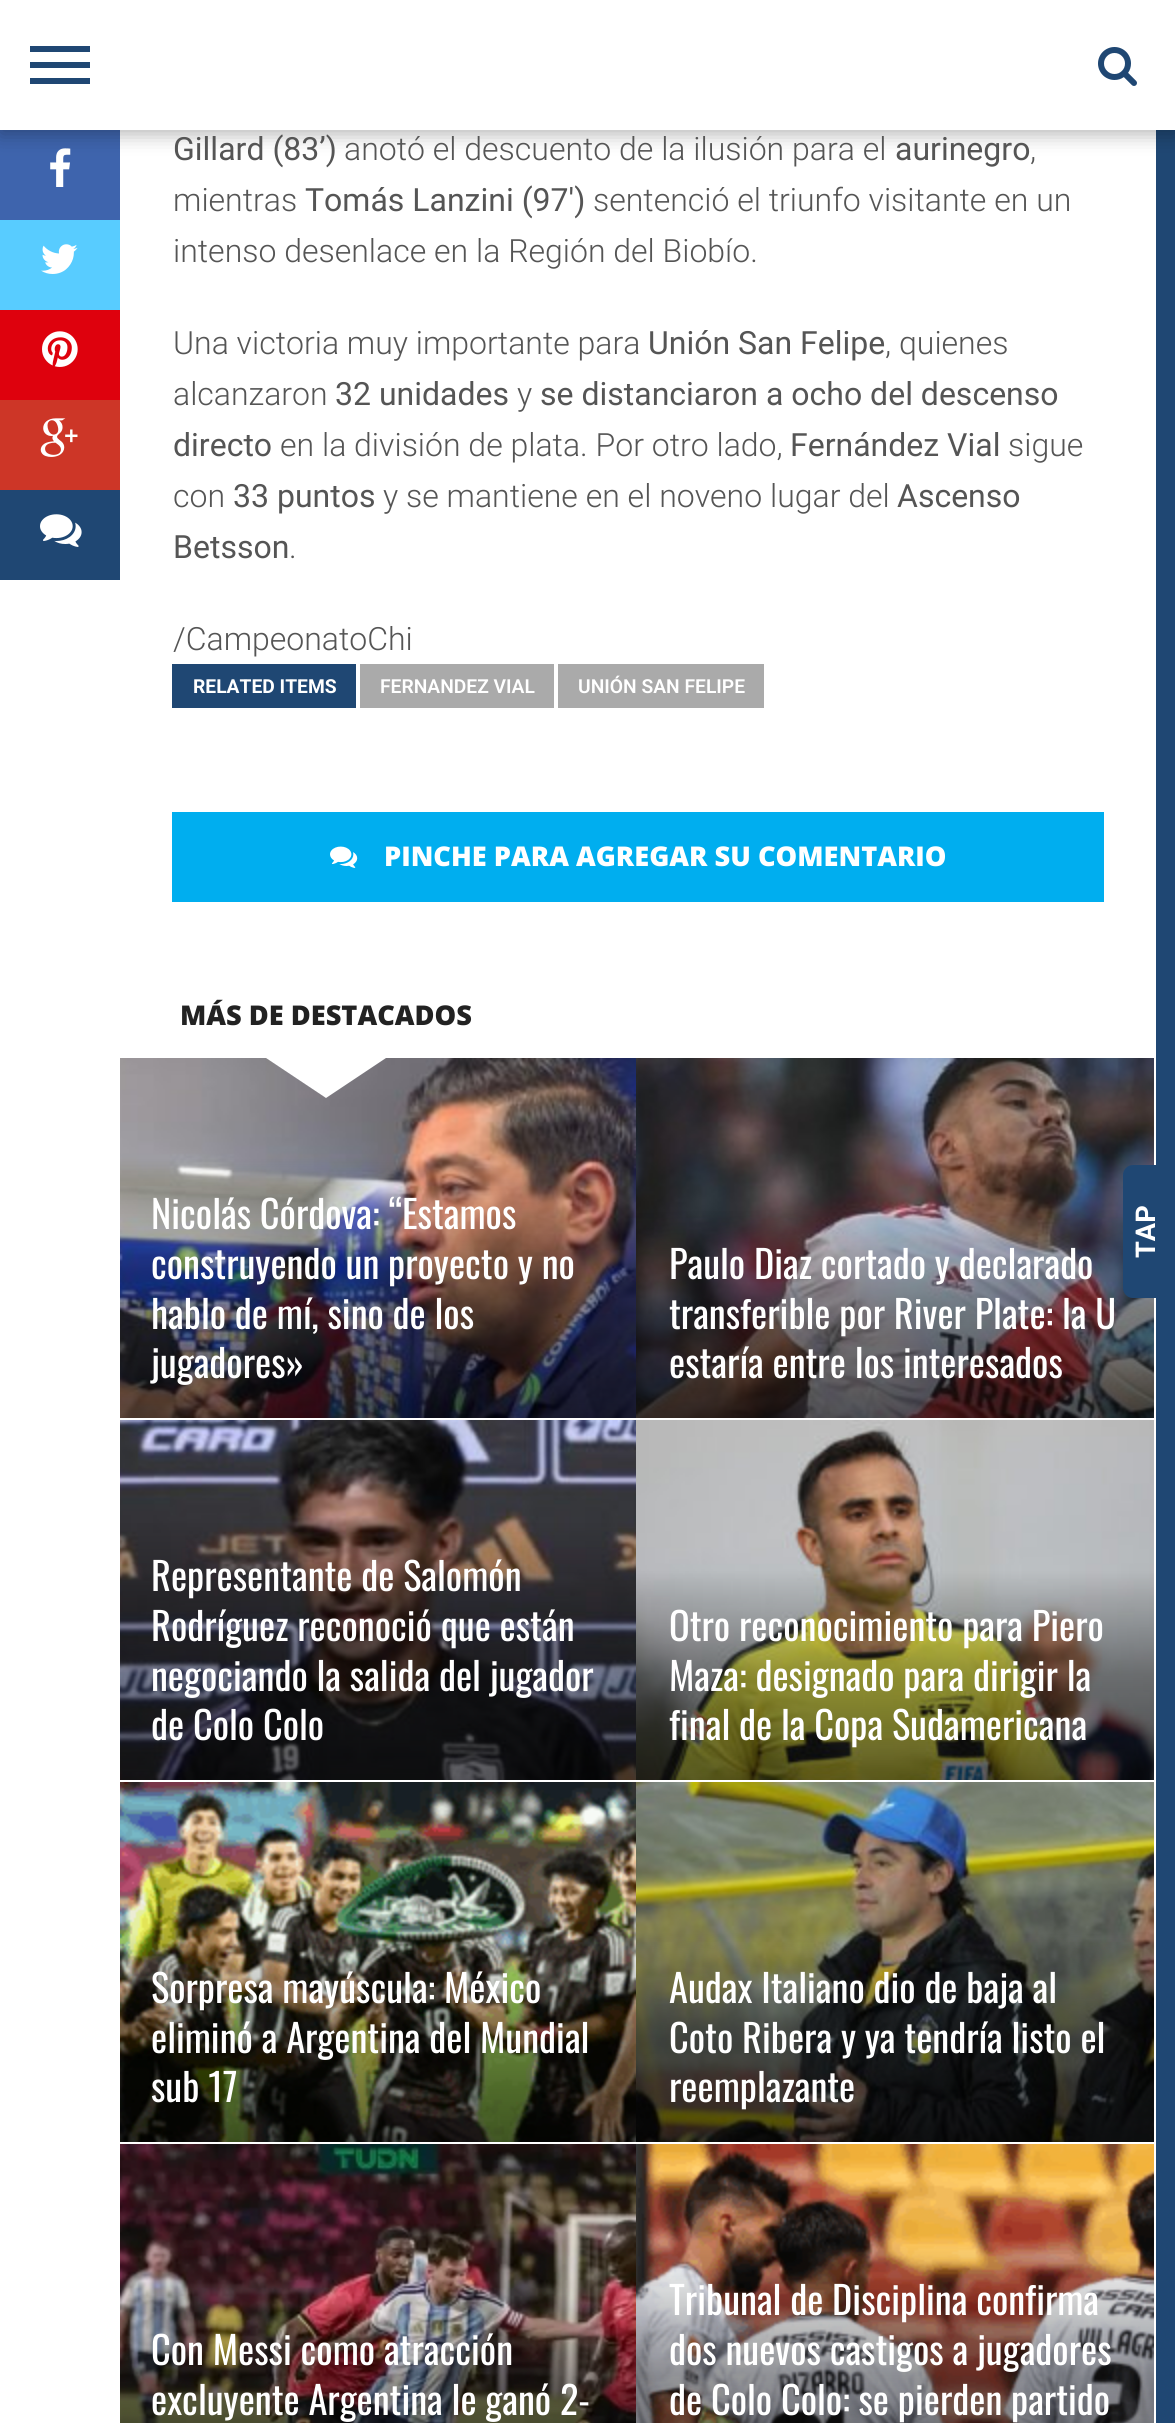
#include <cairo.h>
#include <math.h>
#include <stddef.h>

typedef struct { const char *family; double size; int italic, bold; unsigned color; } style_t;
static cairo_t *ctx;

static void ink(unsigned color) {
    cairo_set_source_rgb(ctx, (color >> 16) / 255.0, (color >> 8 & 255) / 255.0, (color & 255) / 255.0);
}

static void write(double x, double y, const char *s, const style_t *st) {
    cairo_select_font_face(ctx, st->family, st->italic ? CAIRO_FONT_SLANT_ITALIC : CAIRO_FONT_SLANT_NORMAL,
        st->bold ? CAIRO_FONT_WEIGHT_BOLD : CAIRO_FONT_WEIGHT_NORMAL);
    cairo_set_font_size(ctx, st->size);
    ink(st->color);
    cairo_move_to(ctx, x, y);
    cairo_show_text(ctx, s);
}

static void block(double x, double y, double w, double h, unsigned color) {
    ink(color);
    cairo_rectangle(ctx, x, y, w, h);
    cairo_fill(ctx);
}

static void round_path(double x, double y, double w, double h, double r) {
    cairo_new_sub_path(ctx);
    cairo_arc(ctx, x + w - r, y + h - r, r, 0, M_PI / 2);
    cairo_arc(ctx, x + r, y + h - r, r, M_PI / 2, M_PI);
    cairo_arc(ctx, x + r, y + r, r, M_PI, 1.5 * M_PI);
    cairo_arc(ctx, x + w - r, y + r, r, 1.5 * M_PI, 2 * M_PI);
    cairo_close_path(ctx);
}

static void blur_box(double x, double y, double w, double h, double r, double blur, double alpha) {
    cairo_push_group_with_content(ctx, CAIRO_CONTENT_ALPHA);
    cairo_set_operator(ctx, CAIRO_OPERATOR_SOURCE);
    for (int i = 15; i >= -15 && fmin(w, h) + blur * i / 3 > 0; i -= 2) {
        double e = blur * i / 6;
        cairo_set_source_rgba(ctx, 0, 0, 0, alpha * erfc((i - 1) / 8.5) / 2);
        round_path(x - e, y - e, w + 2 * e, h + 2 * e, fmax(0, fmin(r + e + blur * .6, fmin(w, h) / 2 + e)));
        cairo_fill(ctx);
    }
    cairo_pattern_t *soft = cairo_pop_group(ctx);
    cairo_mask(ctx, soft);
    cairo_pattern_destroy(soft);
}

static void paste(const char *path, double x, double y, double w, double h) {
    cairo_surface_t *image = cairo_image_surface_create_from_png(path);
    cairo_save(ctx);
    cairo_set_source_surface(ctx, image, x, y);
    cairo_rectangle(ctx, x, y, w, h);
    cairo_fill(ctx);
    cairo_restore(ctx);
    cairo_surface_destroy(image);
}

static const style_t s1 = {"Roboto", 32, 0, 0, 0x555555};
static const style_t s2 = {"Roboto Light", 32, 0, 0, 0x555555};
static const style_t s3 = {"Roboto", 19.25, 0, 1, 0xffffff};
static const style_t s4 = {"Roboto SemiBold", 19.25, 0, 0, 0xffffff};
static const style_t s5 = {"Open Sans ExtraBold", 27.2, 0, 0, 0xffffff};
static const style_t s6 = {"Open Sans ExtraBold", 27.2, 0, 0, 0x222222};
static const style_t s7 = {"Oswald", 38.4, 0, 0, 0xffffff};
static const style_t s8 = {"Roboto", 27.2, 0, 1, 0xffffff};

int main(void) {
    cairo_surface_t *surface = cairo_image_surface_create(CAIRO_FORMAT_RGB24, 1175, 2423);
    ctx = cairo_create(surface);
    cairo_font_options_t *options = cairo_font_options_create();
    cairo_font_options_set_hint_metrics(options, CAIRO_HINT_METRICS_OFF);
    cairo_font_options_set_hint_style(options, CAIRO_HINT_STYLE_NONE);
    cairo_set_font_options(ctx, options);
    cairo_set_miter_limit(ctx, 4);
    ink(0xffffff);
    cairo_paint(ctx);
    block(0, 130, 120, 90, 0x3e64ad);
    paste("pic2.png", 50, 148, 21, 39);
    block(1156, 130, 19, 2293, 0x1f4773);
    ink(0x000000);
    blur_box(0, 4, 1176, 130, 0, 10, 0.3);
    block(0, 0, 1175, 130, 0xffffff);
    block(30, 46, 60, 6, 0x1f4773);
    block(30, 62, 60, 6, 0x1f4773);
    block(30, 78, 60, 6, 0x1f4773);
    paste("pic1.png", 1098, 47, 39, 39);
    block(0, 220, 120, 90, 0x58ccff);
    paste("pic3.png", 41, 244, 37, 30);
    block(0, 310, 120, 90, 0xde010d);
    paste("pic4.png", 42, 331, 36, 36);
    block(0, 400, 120, 90, 0xcd3627);
    paste("pic5.png", 40, 418, 38, 39);
    block(0, 490, 120, 90, 0x1f4773);
    paste("pic6.png", 40, 514, 42, 33);
    write(173, 160, "Gillard (83’)", &s1);
    write(344, 160, "anotó el descuento de la ilusión para el", &s2);
    write(895, 160, "aurinegro", &s1);
    write(1030, 160, ",", &s2);
    write(173, 211, "mientras", &s2);
    write(305, 211, "Tomás Lanzini (97′)", &s1);
    write(593, 211, "sentenció el triunfo visitante en un", &s2);
    write(173, 262, "intenso desenlace en la Región del Biobío.", &s2);
    write(173, 354, "Una victoria muy importante para", &s2);
    write(648, 354, "Unión San Felipe", &s1);
    write(885, 354, ", quienes", &s2);
    write(173, 405, "alcanzaron", &s2);
    write(335, 405, "32 unidades", &s1);
    write(517, 405, "y", &s2);
    write(540, 405, "se distanciaron a ocho del descenso", &s1);
    write(173, 456, "directo", &s1);
    write(280, 456, "en la división de plata. Por otro lado,", &s2);
    write(790, 456, "Fernández Vial", &s1);
    write(1008, 456, "sigue", &s2);
    write(173, 507, "con", &s2);
    write(233, 507, "33 puntos", &s1);
    write(383, 507, "y se mantiene en el noveno lugar del", &s2);
    write(897, 507, "Ascenso", &s1);
    write(173, 558, "Betsson", &s1);
    write(289, 558, ".", &s2);
    write(173, 650, "/CampeonatoChi", &s2);
    block(172, 664, 184, 44, 0x1f4773);
    write(193, 693, "RELATED ITEMS", &s3);
    block(360, 664, 194, 44, 0xaaaaaa);
    write(380, 693, "FERNANDEZ VIAL", &s4);
    block(558, 664, 206, 44, 0xaaaaaa);
    write(578, 693, "UNIÓN SAN FELIPE", &s4);
    block(172, 812, 932, 90, 0x00aeef);
    paste("pic7.png", 330, 846, 28, 22);
    write(384, 866, "PINCHE PARA AGREGAR SU COMENTARIO", &s5);
    write(180, 1025, "MÁS DE DESTACADOS", &s6);
    paste("pic8.png", 120, 1058, 516, 360);
    ink(0xffffff);
    cairo_new_path(ctx);
    cairo_move_to(ctx, 266, 1058);
    cairo_line_to(ctx, 386, 1058);
    cairo_line_to(ctx, 326, 1098);
    cairo_close_path(ctx);
    cairo_fill(ctx);
    write(151, 1229, "Nicolás Córdova: “Estamos", &s7);
    write(151, 1279, "construyendo un proyecto y no", &s7);
    write(151, 1329, "hablo de mí, sino de los", &s7);
    write(151, 1378, "jugadores»", &s7);
    paste("pic9.png", 636, 1058, 518, 360);
    write(669, 1279, "Paulo Diaz cortado y declarado", &s7);
    write(669, 1329, "transferible por River Plate: la U", &s7);
    write(669, 1378, "estaría entre los interesados", &s7);
    paste("pic10.png", 120, 1420, 516, 360);
    write(151, 1591, "Representante de Salomón", &s7);
    write(151, 1641, "Rodríguez reconoció que están", &s7);
    write(151, 1691, "negociando la salida del jugador", &s7);
    write(151, 1740, "de Colo Colo", &s7);
    paste("pic11.png", 636, 1420, 518, 360);
    write(669, 1641, "Otro reconocimiento para Piero", &s7);
    write(669, 1691, "Maza: designado para dirigir la", &s7);
    write(669, 1740, "final de la Copa Sudamericana", &s7);
    paste("pic12.png", 120, 1782, 516, 360);
    write(151, 2003, "Sorpresa mayúscula: México", &s7);
    write(151, 2053, "eliminó a Argentina del Mundial", &s7);
    write(151, 2102, "sub 17", &s7);
    paste("pic13.png", 636, 1782, 518, 360);
    write(669, 2003, "Audax Italiano dio de baja al", &s7);
    write(669, 2053, "Coto Ribera y ya tendría listo el", &s7);
    write(669, 2102, "reemplazante", &s7);
    paste("pic14.png", 120, 2144, 516, 279);
    write(151, 2365, "Con Messi como atracción", &s7);
    write(151, 2415, "excluyente Argentina le ganó 2-", &s7);
    paste("pic15.png", 636, 2144, 518, 279);
    write(669, 2315, "Tribunal de Disciplina confirma", &s7);
    write(669, 2365, "dos nuevos castigos a jugadores", &s7);
    write(669, 2415, "de Colo Colo: se pierden partido", &s7);
    ink(0x1f4773);
    cairo_new_path(ctx);
    cairo_move_to(ctx, 1123, 1288);
    cairo_line_to(ctx, 1123, 1175);
    cairo_curve_to(ctx, 1123, 1170, 1127, 1165, 1133, 1165);
    cairo_line_to(ctx, 1160, 1165);
    cairo_curve_to(ctx, 1165, 1165, 1170, 1170, 1170, 1175);
    cairo_line_to(ctx, 1170, 1288);
    cairo_curve_to(ctx, 1170, 1293, 1165, 1298, 1160, 1298);
    cairo_line_to(ctx, 1133, 1298);
    cairo_curve_to(ctx, 1127, 1298, 1123, 1293, 1123, 1288);
    cairo_close_path(ctx);
    cairo_fill(ctx);
    cairo_save(ctx);
    cairo_translate(ctx, 1155, 1258);
    cairo_rotate(ctx, -90 * M_PI / 180);
    write(0, 0, "TAP", &s8);
    cairo_restore(ctx);
    cairo_surface_write_to_png(surface, "screenshot.png");
    cairo_font_options_destroy(options);
    cairo_destroy(ctx);
    cairo_surface_destroy(surface);
    return 0;
}
